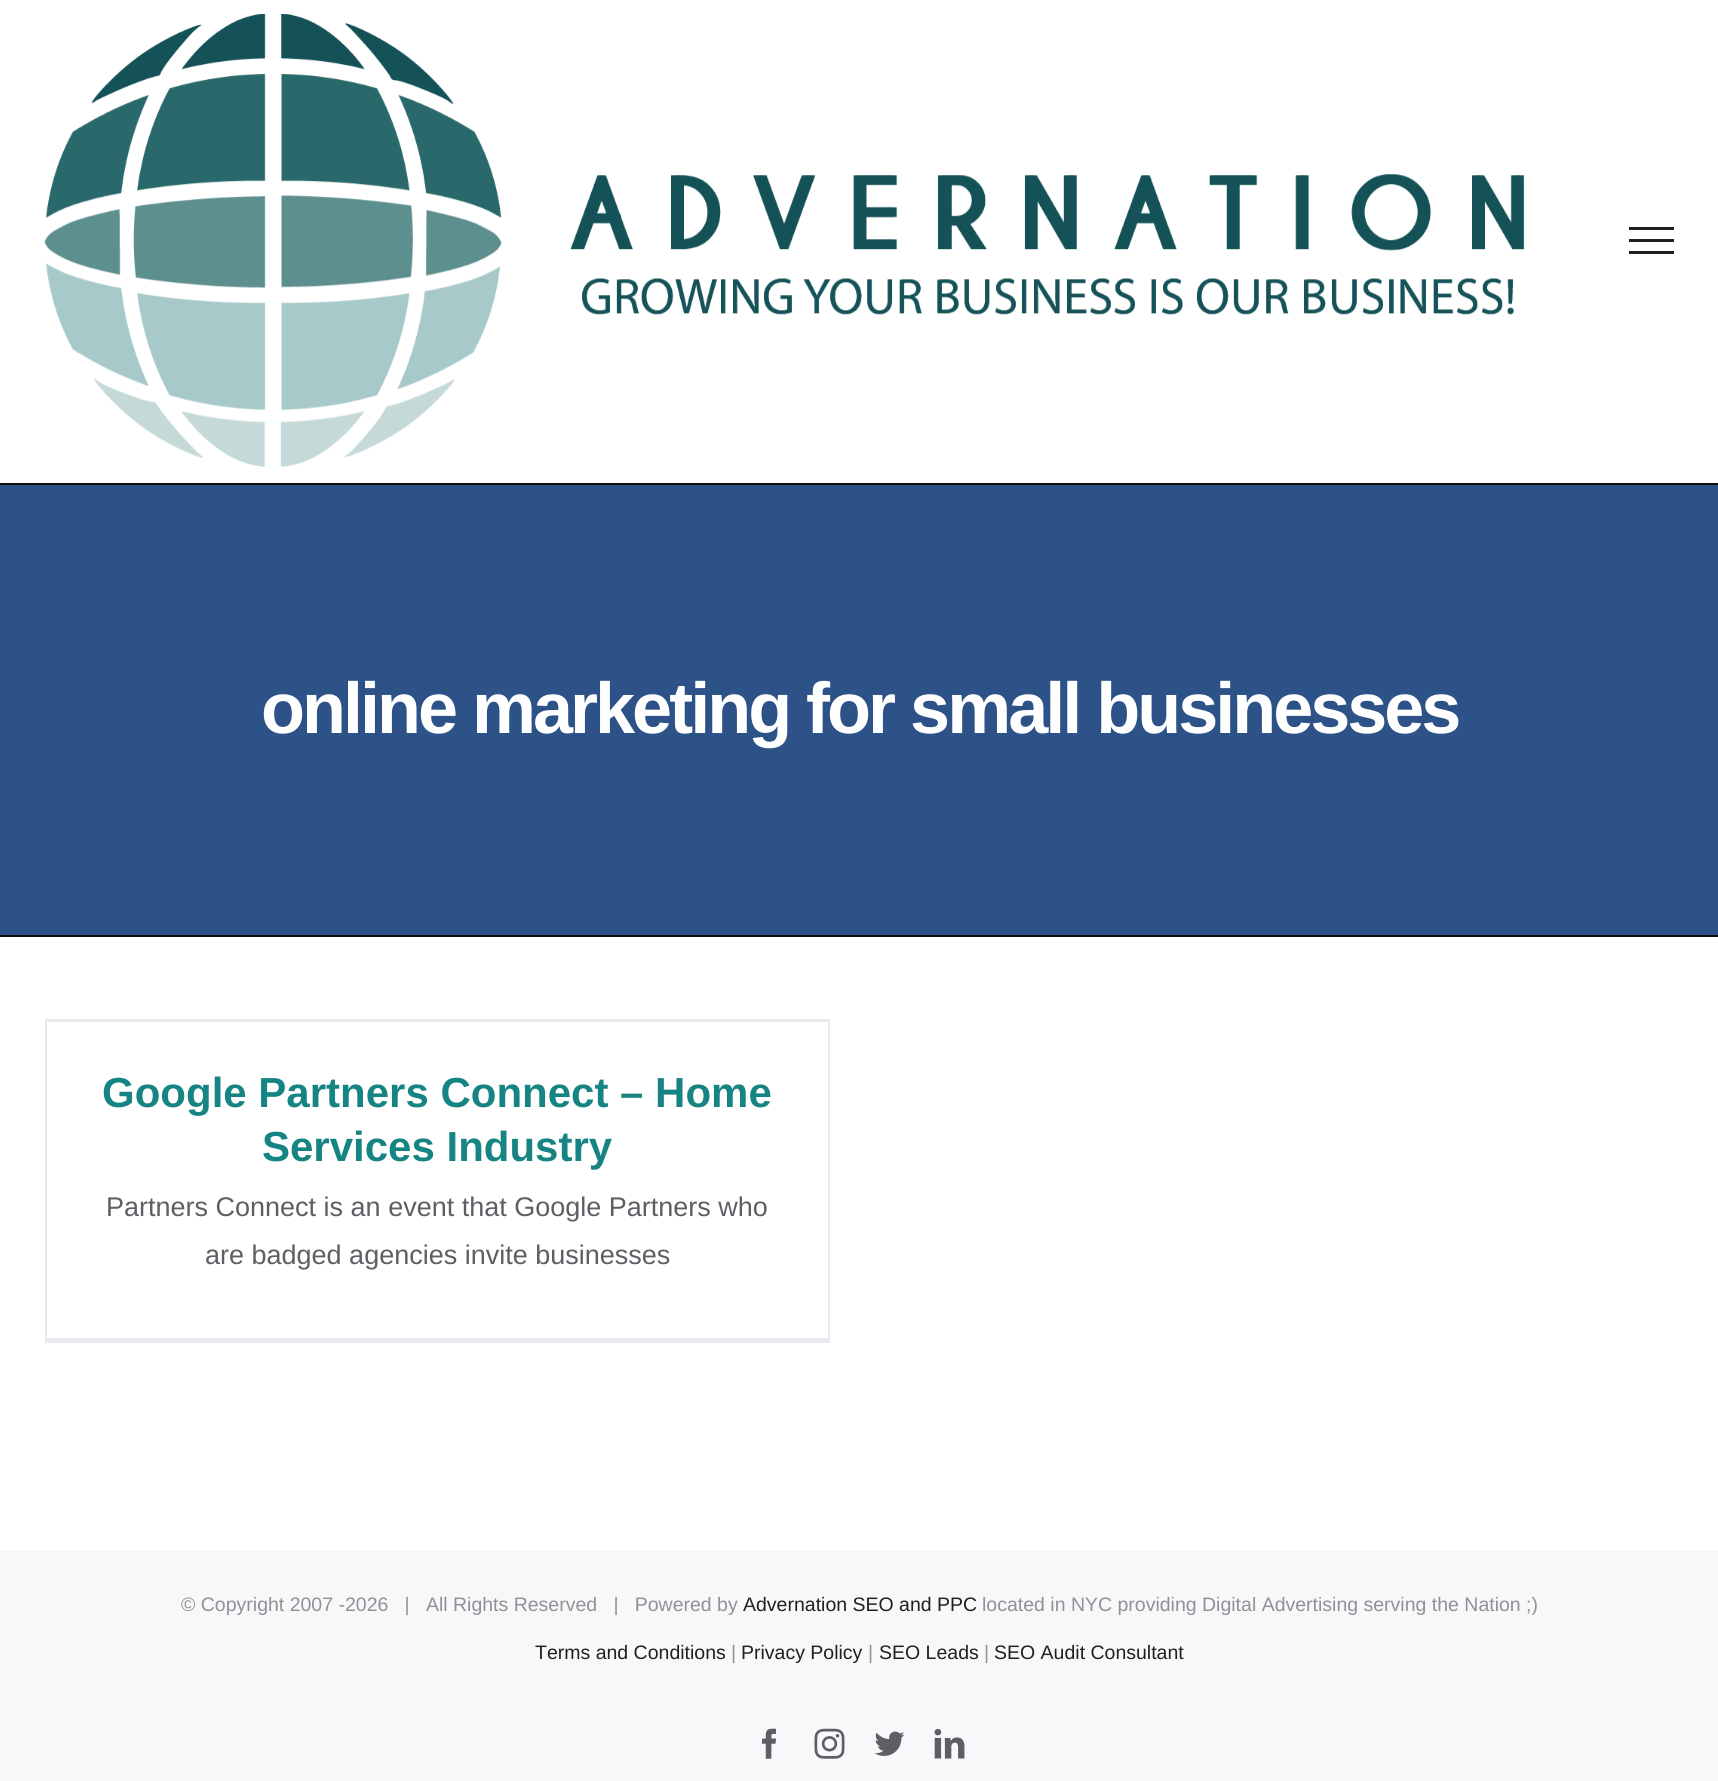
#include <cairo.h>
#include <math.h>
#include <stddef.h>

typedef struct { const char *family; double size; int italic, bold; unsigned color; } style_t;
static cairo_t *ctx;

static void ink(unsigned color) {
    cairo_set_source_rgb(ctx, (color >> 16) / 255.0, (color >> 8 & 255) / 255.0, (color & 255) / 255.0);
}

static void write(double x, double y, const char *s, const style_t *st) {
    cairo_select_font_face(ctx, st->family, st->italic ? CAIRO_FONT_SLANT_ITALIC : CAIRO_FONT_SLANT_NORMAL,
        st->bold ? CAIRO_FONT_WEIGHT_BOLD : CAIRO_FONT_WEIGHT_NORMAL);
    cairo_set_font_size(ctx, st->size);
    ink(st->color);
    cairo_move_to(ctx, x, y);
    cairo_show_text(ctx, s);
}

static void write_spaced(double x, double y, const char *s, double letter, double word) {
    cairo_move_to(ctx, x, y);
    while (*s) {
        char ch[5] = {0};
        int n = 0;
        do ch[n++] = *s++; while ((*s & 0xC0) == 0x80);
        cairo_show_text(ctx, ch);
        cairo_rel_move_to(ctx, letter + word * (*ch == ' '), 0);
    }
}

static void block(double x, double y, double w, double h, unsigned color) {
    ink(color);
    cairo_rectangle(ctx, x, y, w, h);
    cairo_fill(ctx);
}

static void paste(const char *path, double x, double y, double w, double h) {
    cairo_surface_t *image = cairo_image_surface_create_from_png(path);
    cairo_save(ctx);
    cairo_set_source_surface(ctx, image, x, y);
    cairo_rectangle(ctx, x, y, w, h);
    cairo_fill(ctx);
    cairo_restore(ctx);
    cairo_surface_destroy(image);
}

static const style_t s1 = {"Liberation Sans", 42, 0, 1, 0x158482};
static const style_t s2 = {"Liberation Sans", 27, 0, 0, 0x5d5f64};
static const style_t s3 = {"Liberation Sans", 19.5, 0, 0, 0x8f9195};
static const style_t s4 = {"Liberation Sans", 19.5, 0, 0, 0x202020};

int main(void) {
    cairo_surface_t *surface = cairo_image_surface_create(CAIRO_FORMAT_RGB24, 1718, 1781);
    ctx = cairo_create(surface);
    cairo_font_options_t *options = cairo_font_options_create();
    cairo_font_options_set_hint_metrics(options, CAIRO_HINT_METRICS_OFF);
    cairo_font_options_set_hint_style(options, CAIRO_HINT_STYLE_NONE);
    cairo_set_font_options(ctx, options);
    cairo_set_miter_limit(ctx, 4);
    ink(0xffffff);
    cairo_paint(ctx);
    paste("pic1.png", 45, 14, 1480, 453);
    block(1629, 227, 45, 3, 0x202020);
    block(1629, 239, 45, 3, 0x202020);
    block(1629, 251, 45, 3, 0x202020);
    block(0, 485, 1718, 450, 0x2c5288);
    block(0, 483, 1718, 2, 0x0f0e0e);
    block(0, 935, 1718, 2, 0x0f0e0e);
    cairo_select_font_face(ctx, "Liberation Sans", CAIRO_FONT_SLANT_NORMAL, CAIRO_FONT_WEIGHT_BOLD);
    cairo_set_font_size(ctx, 72);
    ink(0xffffff);
    write_spaced(261, 733, "online marketing for small businesses", -3, 0);
    block(45, 1019, 785, 1, 0xe8eaf0);
    block(828, 1019, 2, 324, 0xe8eaf0);
    block(45, 1338, 785, 5, 0xe8eaf0);
    block(45, 1019, 2, 324, 0xe8eaf0);
    block(47, 1020, 781, 2, 0xe8eaf0);
    write(102, 1107, "Google Partners Connect – Home", &s1);
    write(262, 1161, "Services Industry", &s1);
    write(106, 1216, "Partners Connect is an event that Google Partners who", &s2);
    write(205, 1264, "are badged agencies invite businesses", &s2);
    block(0, 1551, 1718, 230, 0xf7f8f9);
    write(181, 1611, "© Copyright 2007 -2026   |   All Rights Reserved   |   Powered by", &s3);
    write(743, 1611, "Advernation SEO and PPC", &s4);
    write(982, 1611, "located in NYC providing Digital Advertising serving the Nation ;)", &s3);
    write(535, 1659, "Terms and Conditions", &s4);
    write(731, 1659, "|", &s3);
    write(741, 1659, "Privacy Policy", &s4);
    write(868, 1659, "|", &s3);
    write(879, 1659, "SEO Leads", &s4);
    write(984, 1659, "|", &s3);
    write(994, 1659, "SEO Audit Consultant", &s4);
    paste("pic2.png", 762, 1728, 14, 31);
    paste("pic3.png", 814, 1728, 31, 31);
    paste("pic4.png", 874, 1731, 31, 25);
    paste("pic5.png", 934, 1729, 31, 30);
    cairo_surface_write_to_png(surface, "screenshot.png");
    cairo_font_options_destroy(options);
    cairo_destroy(ctx);
    cairo_surface_destroy(surface);
    return 0;
}
